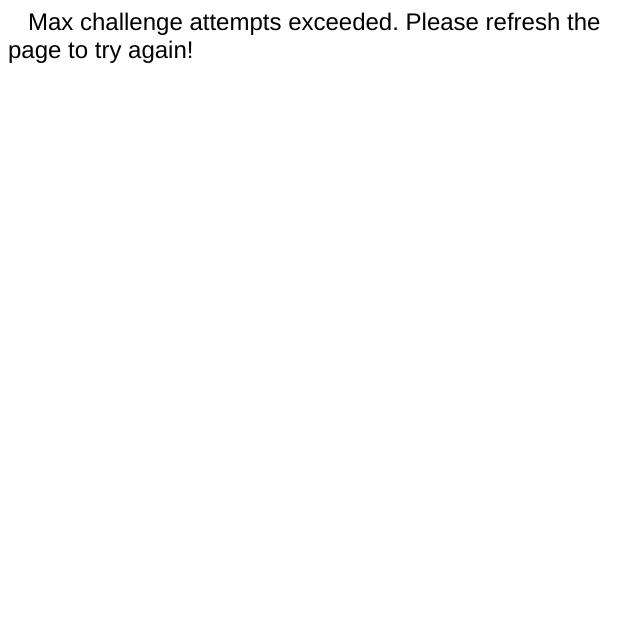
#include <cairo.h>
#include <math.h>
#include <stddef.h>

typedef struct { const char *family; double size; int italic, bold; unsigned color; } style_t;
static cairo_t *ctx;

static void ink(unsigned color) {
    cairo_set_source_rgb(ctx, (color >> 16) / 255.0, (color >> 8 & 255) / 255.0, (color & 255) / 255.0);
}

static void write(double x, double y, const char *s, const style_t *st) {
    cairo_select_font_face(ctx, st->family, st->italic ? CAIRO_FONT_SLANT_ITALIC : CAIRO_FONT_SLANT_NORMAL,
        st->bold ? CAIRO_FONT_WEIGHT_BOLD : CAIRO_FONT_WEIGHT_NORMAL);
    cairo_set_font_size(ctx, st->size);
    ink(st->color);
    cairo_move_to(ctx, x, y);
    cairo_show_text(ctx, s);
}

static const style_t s1 = {"Liberation Sans", 24, 0, 0, 0x000000};

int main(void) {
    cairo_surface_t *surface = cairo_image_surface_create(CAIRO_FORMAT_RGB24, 618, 624);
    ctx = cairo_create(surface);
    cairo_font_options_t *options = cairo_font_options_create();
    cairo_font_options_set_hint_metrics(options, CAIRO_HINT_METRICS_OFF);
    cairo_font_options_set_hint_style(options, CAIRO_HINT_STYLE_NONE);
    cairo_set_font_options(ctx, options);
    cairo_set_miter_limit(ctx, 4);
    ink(0xffffff);
    cairo_paint(ctx);
    write(28, 30, "Max challenge attempts exceeded. Please refresh the", &s1);
    write(8, 58, "page to try again!", &s1);
    cairo_surface_write_to_png(surface, "screenshot.png");
    cairo_font_options_destroy(options);
    cairo_destroy(ctx);
    cairo_surface_destroy(surface);
    return 0;
}
